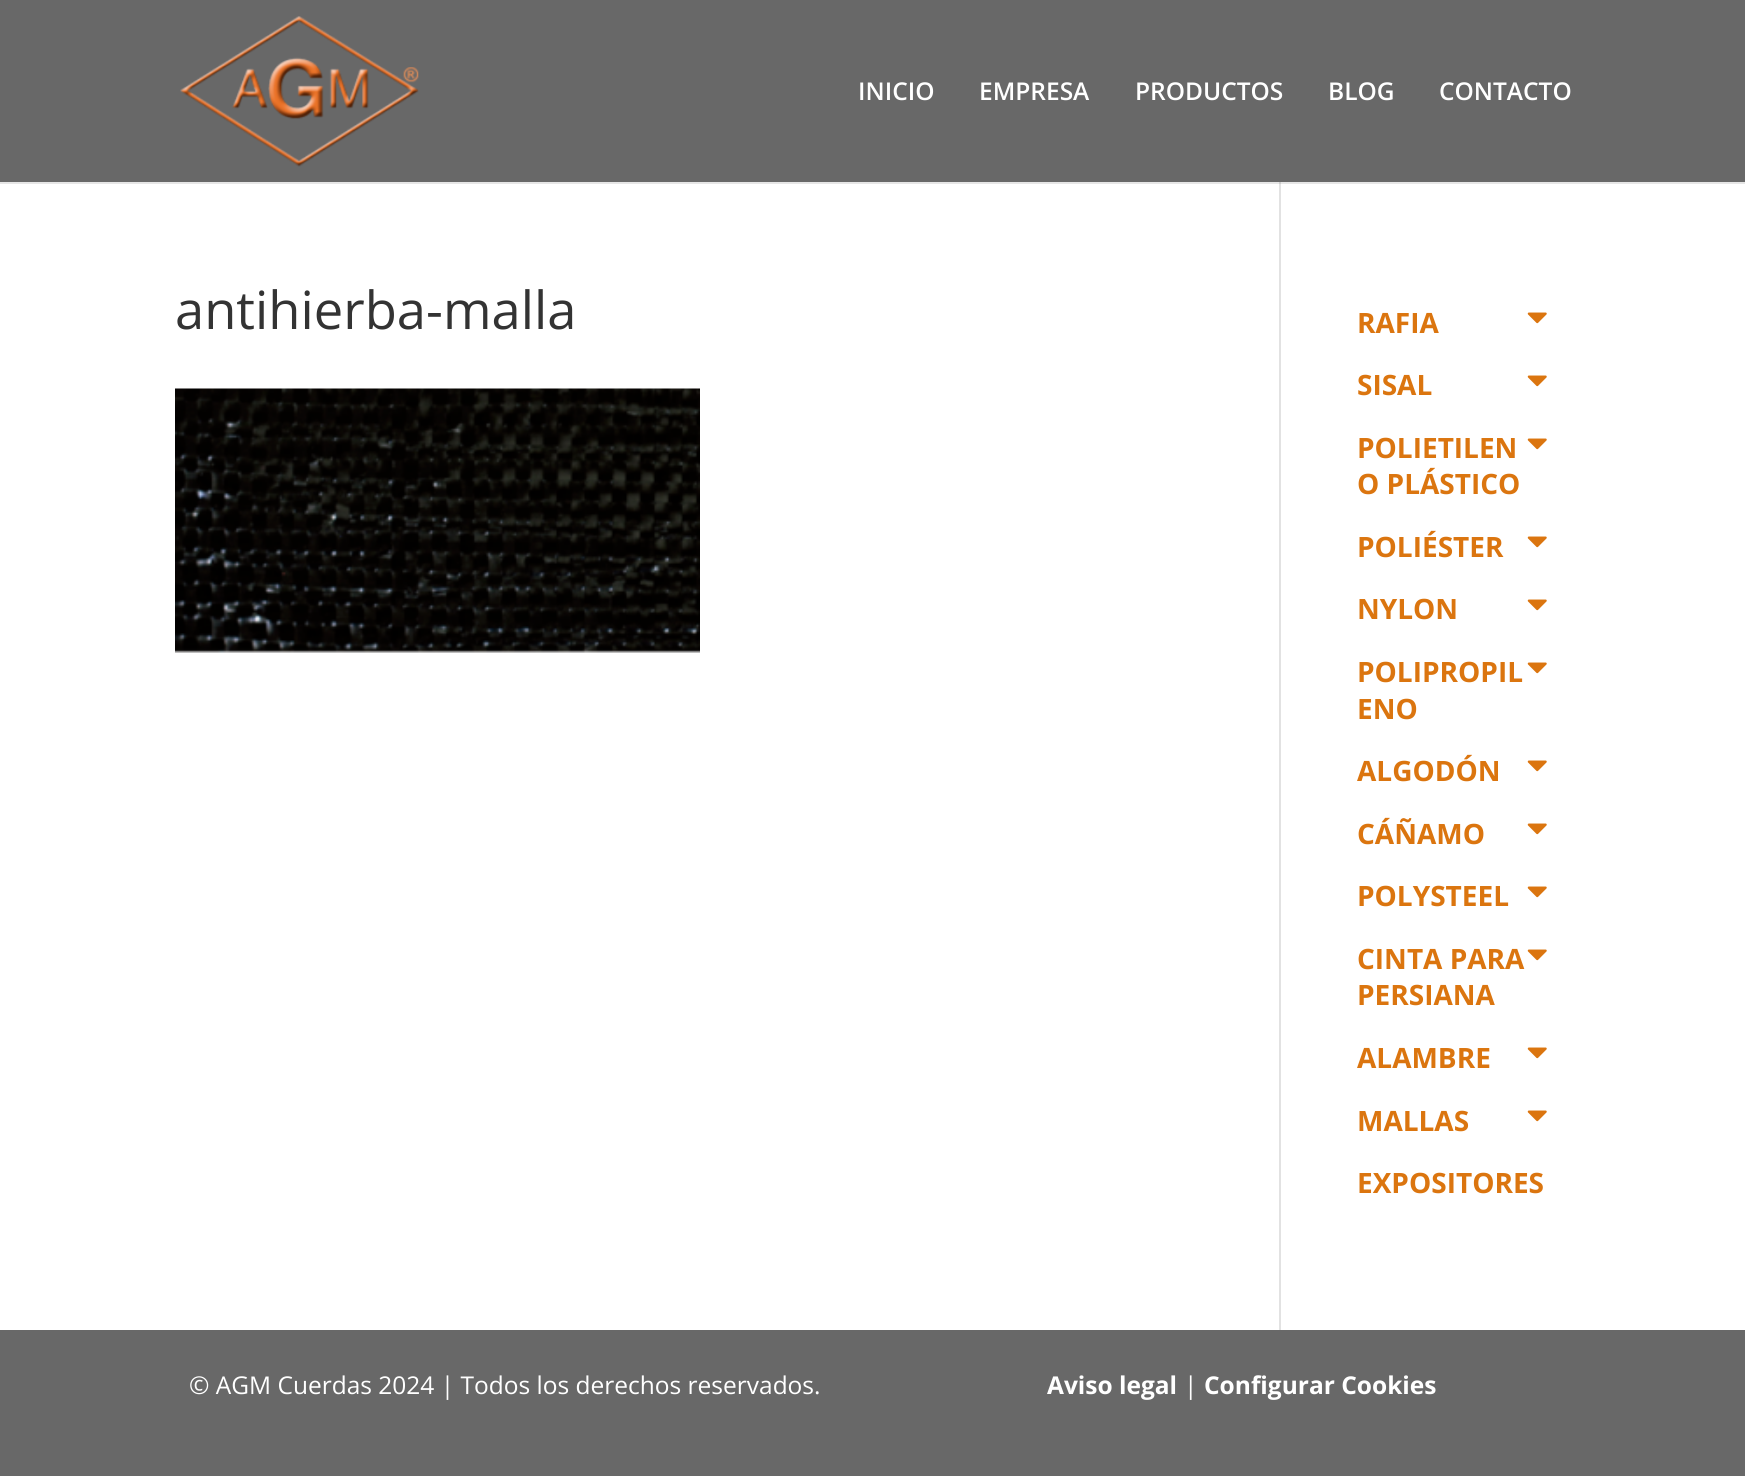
#include <cairo.h>
#include <math.h>
#include <stddef.h>

typedef struct { const char *family; double size; int italic, bold; unsigned color; } style_t;
static cairo_t *ctx;

static void ink(unsigned color) {
    cairo_set_source_rgb(ctx, (color >> 16) / 255.0, (color >> 8 & 255) / 255.0, (color & 255) / 255.0);
}

static void write(double x, double y, const char *s, const style_t *st) {
    cairo_select_font_face(ctx, st->family, st->italic ? CAIRO_FONT_SLANT_ITALIC : CAIRO_FONT_SLANT_NORMAL,
        st->bold ? CAIRO_FONT_WEIGHT_BOLD : CAIRO_FONT_WEIGHT_NORMAL);
    cairo_set_font_size(ctx, st->size);
    ink(st->color);
    cairo_move_to(ctx, x, y);
    cairo_show_text(ctx, s);
}

static void block(double x, double y, double w, double h, unsigned color) {
    ink(color);
    cairo_rectangle(ctx, x, y, w, h);
    cairo_fill(ctx);
}

static void paste(const char *path, double x, double y, double w, double h) {
    cairo_surface_t *image = cairo_image_surface_create_from_png(path);
    cairo_save(ctx);
    cairo_set_source_surface(ctx, image, x, y);
    cairo_rectangle(ctx, x, y, w, h);
    cairo_fill(ctx);
    cairo_restore(ctx);
    cairo_surface_destroy(image);
}

static const style_t s1 = {"Open Sans SemiBold", 24.5, 0, 0, 0xffffff};
static const style_t s2 = {"Open Sans", 52.5, 0, 0, 0x333333};
static const style_t s3 = {"Open Sans", 28, 0, 1, 0xdb750f};
static const style_t s4 = {"Open Sans", 24.5, 0, 0, 0xffffff};
static const style_t s5 = {"Open Sans", 24.5, 0, 1, 0xffffff};

int main(void) {
    cairo_surface_t *surface = cairo_image_surface_create(CAIRO_FORMAT_RGB24, 1745, 1476);
    ctx = cairo_create(surface);
    cairo_font_options_t *options = cairo_font_options_create();
    cairo_font_options_set_hint_metrics(options, CAIRO_HINT_METRICS_OFF);
    cairo_font_options_set_hint_style(options, CAIRO_HINT_STYLE_NONE);
    cairo_set_font_options(ctx, options);
    cairo_set_miter_limit(ctx, 4);
    ink(0x686868);
    cairo_paint(ctx);
    block(0, 182, 1745, 1148, 0xffffff);
    block(1279, 182, 2, 1148, 0xe2e2e2);
    cairo_set_source_rgba(ctx, 0, 0, 0, 0.1);
    cairo_new_path(ctx);
    cairo_move_to(ctx, 0, 182);
    cairo_line_to(ctx, 0, 184);
    cairo_line_to(ctx, 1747, 184);
    cairo_line_to(ctx, 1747, 2);
    cairo_line_to(ctx, 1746, 2);
    cairo_line_to(ctx, 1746, 182);
    cairo_close_path(ctx);
    cairo_fill(ctx);
    paste("pic1.png", 180, 16, 239, 151);
    write(858, 100, "INICIO", &s1);
    write(979, 100, "EMPRESA", &s1);
    write(1135, 100, "PRODUCTOS", &s1);
    write(1328, 100, "BLOG", &s1);
    write(1439, 100, "CONTACTO", &s1);
    write(175, 329, "antihierba-malla", &s2);
    paste("pic2.png", 175, 388, 525, 265);
    write(1357, 333, "RAFIA", &s3);
    paste("pic3.png", 1527, 312, 20, 12);
    write(1357, 395, "SISAL", &s3);
    paste("pic3.png", 1527, 375, 20, 12);
    write(1357, 458, "POLIETILEN", &s3);
    paste("pic3.png", 1527, 438, 20, 12);
    write(1357, 494, "O PLÁSTICO", &s3);
    write(1357, 557, "POLIÉSTER", &s3);
    paste("pic3.png", 1527, 536, 20, 12);
    write(1357, 619, "NYLON", &s3);
    paste("pic3.png", 1527, 599, 20, 12);
    write(1357, 682, "POLIPROPIL", &s3);
    paste("pic3.png", 1527, 662, 20, 12);
    write(1357, 719, "ENO", &s3);
    write(1357, 781, "ALGODÓN", &s3);
    paste("pic3.png", 1527, 760, 20, 12);
    write(1357, 844, "CÁÑAMO", &s3);
    paste("pic3.png", 1527, 823, 20, 12);
    write(1357, 906, "POLYSTEEL", &s3);
    paste("pic3.png", 1527, 886, 20, 12);
    write(1357, 969, "CINTA PARA", &s3);
    paste("pic3.png", 1527, 949, 20, 12);
    write(1357, 1005, "PERSIANA", &s3);
    write(1357, 1068, "ALAMBRE", &s3);
    paste("pic3.png", 1527, 1047, 20, 12);
    write(1357, 1131, "MALLAS", &s3);
    paste("pic3.png", 1527, 1110, 20, 12);
    write(1357, 1193, "EXPOSITORES", &s3);
    write(189, 1394, "© AGM Cuerdas 2024 | Todos los derechos reservados.", &s4);
    write(1047, 1394, "Aviso legal", &s5);
    write(1184, 1394, "|", &s4);
    write(1204, 1394, "Configurar Cookies", &s5);
    cairo_surface_write_to_png(surface, "screenshot.png");
    cairo_font_options_destroy(options);
    cairo_destroy(ctx);
    cairo_surface_destroy(surface);
    return 0;
}
